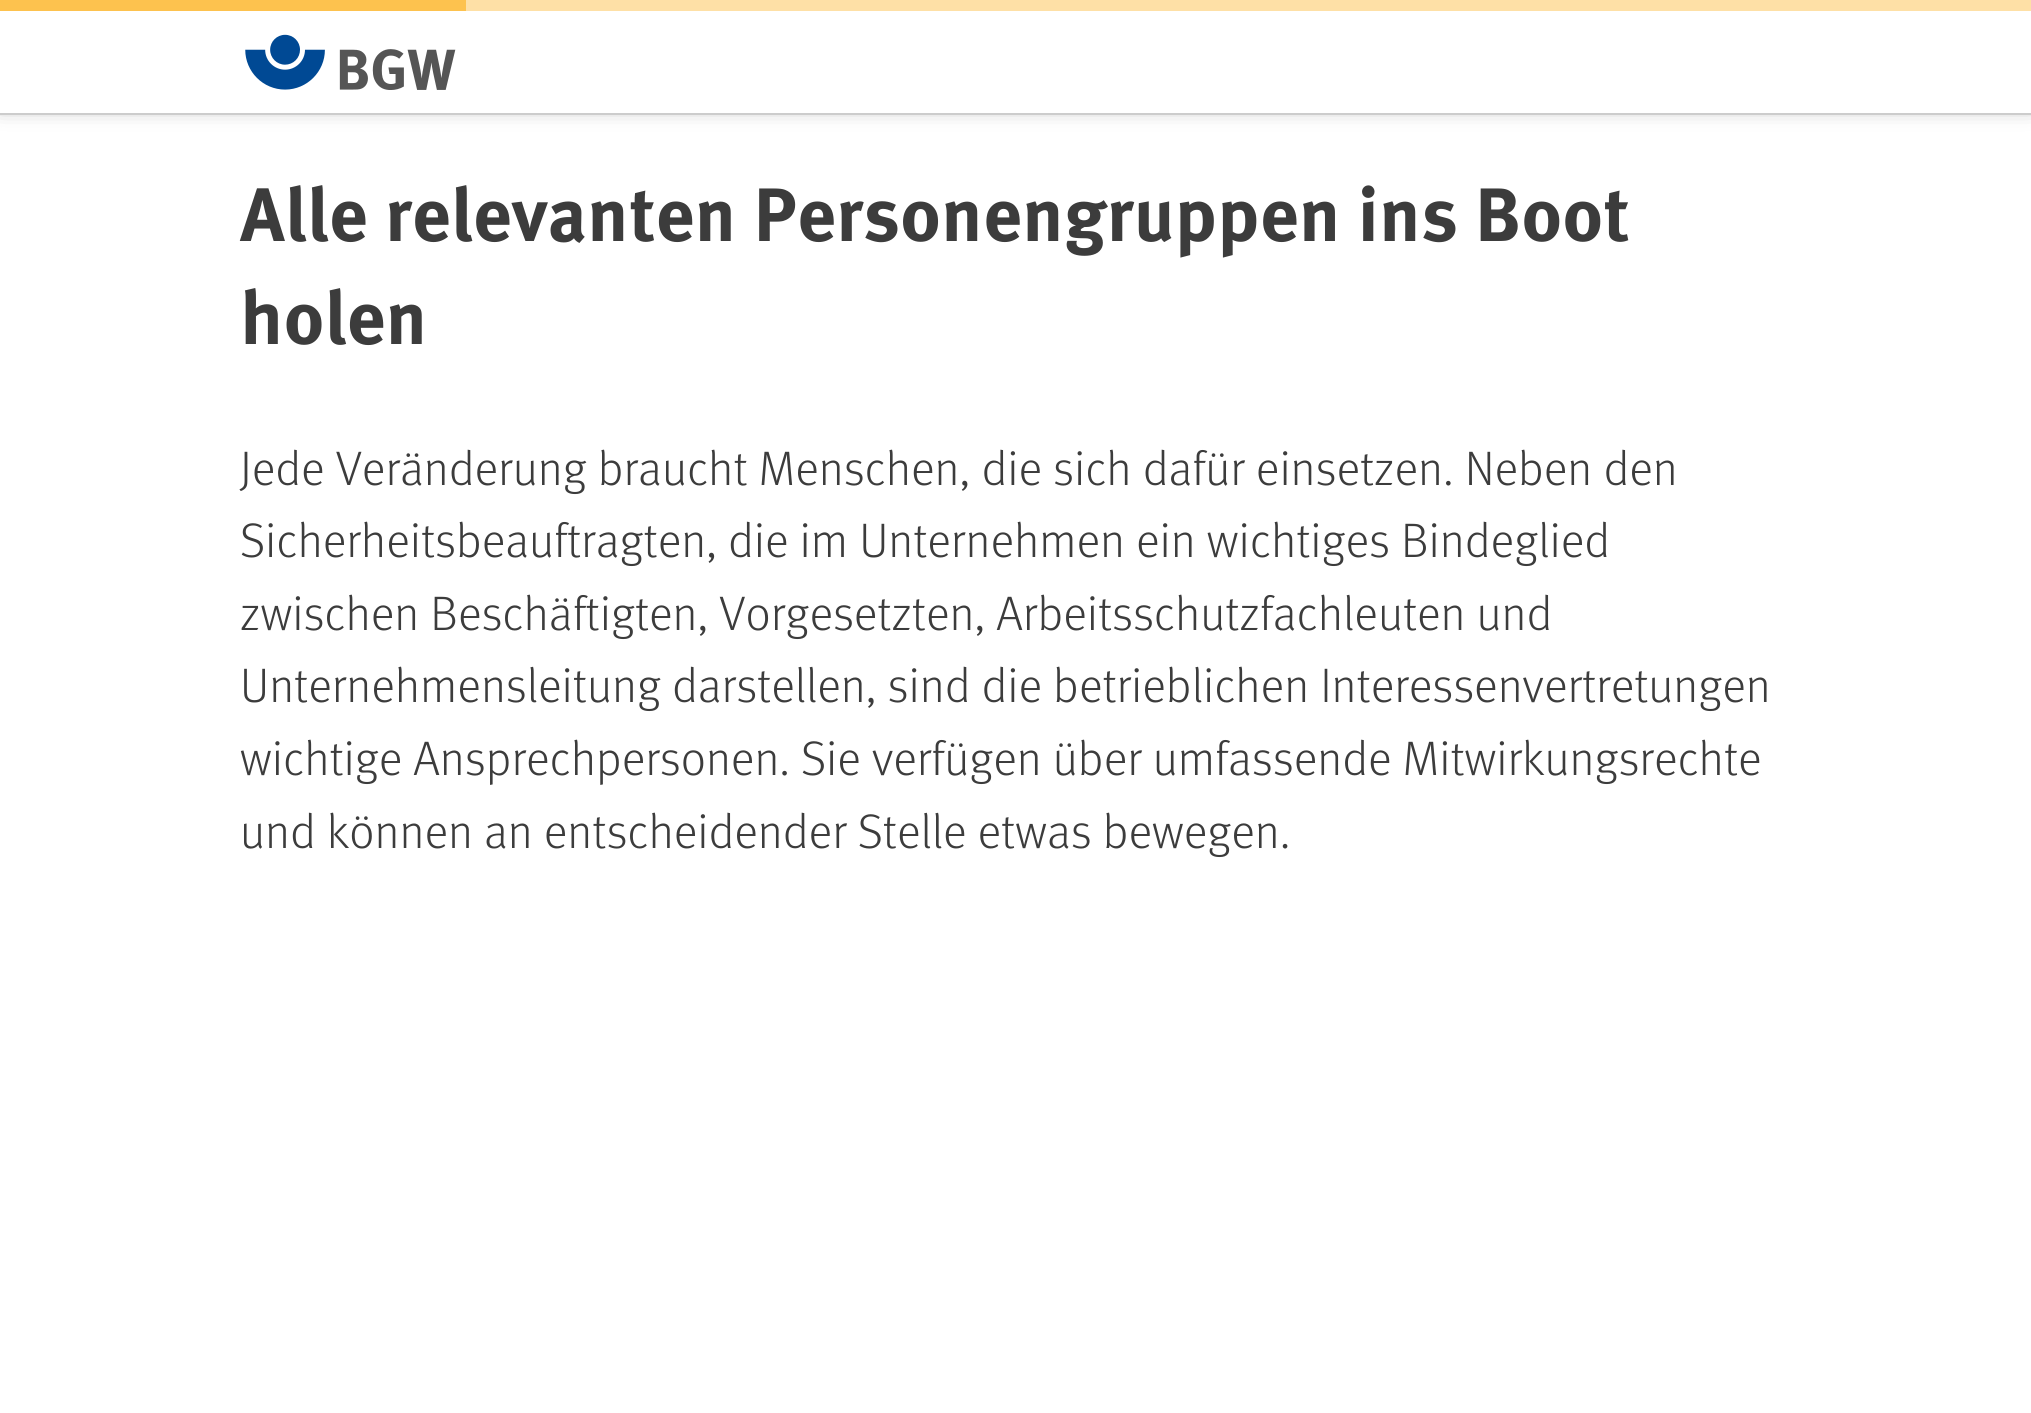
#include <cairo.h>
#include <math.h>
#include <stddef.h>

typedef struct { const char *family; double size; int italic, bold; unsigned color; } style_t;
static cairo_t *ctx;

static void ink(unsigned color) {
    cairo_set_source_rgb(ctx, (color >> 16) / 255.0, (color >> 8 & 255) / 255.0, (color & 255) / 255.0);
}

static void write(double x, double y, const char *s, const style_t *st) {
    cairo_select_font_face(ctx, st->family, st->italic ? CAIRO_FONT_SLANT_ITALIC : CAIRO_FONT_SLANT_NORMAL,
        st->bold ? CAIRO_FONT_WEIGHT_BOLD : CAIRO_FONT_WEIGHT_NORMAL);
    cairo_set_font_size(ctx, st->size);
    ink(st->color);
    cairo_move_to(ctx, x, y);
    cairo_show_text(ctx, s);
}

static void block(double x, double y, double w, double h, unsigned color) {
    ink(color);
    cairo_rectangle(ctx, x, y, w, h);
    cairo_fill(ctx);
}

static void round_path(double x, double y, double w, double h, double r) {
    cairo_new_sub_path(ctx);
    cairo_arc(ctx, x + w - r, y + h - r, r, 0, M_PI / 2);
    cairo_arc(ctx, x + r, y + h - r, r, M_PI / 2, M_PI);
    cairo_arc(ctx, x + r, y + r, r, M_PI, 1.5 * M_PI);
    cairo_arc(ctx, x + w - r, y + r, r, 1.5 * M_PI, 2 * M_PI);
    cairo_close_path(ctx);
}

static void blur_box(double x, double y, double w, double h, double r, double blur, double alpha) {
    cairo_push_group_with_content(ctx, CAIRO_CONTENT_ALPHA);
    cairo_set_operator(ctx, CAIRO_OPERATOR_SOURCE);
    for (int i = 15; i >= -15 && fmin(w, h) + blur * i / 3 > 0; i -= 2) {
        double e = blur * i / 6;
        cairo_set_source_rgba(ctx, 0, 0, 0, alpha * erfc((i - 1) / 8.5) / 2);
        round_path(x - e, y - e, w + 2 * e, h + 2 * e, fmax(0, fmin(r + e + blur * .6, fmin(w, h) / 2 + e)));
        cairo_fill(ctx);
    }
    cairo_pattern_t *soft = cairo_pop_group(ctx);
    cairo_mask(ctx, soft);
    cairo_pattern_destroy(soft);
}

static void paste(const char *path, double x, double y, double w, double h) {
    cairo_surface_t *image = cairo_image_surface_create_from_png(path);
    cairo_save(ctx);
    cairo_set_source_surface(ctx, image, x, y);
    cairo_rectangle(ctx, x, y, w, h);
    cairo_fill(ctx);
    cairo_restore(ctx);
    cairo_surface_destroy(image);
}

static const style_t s1 = {"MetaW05", 75.6, 0, 1, 0x3c3c3c};
static const style_t s2 = {"MetaW05 Light", 48.4, 0, 0, 0x3c3c3c};

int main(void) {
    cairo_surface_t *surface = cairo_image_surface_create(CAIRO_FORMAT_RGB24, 2031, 1413);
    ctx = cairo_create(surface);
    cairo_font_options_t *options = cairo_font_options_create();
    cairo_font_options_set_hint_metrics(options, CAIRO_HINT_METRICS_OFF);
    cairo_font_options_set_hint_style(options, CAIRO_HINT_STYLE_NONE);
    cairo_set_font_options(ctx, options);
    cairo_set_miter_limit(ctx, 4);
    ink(0xffffff);
    cairo_paint(ctx);
    ink(0x000000);
    blur_box(0, -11, 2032, 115, 0, 11, 0.5);
    block(0, 11, 2031, 102, 0xffffff);
    block(466, 0, 1565, 11, 0xfee0a6);
    block(0, 113, 2031, 2, 0xcccccc);
    block(0, 0, 466, 11, 0xfdc24e);
    paste("pic1.png", 245, 34, 211, 56);
    write(240, 241, "Alle relevanten Personengruppen ins Boot", &s1);
    write(240, 344, "holen", &s1);
    write(240, 485, "Jede Veränderung braucht Menschen, die sich dafür einsetzen. Neben den", &s2);
    write(240, 557, "Sicherheitsbeauftragten, die im Unternehmen ein wichtiges Bindeglied", &s2);
    write(240, 630, "zwischen Beschäftigten, Vorgesetzten, Arbeitsschutzfachleuten und", &s2);
    write(240, 702, "Unternehmensleitung darstellen, sind die betrieblichen Interessenvertretungen", &s2);
    write(240, 775, "wichtige Ansprechpersonen. Sie verfügen über umfassende Mitwirkungsrechte", &s2);
    write(240, 848, "und können an entscheidender Stelle etwas bewegen.", &s2);
    cairo_surface_write_to_png(surface, "screenshot.png");
    cairo_font_options_destroy(options);
    cairo_destroy(ctx);
    cairo_surface_destroy(surface);
    return 0;
}
